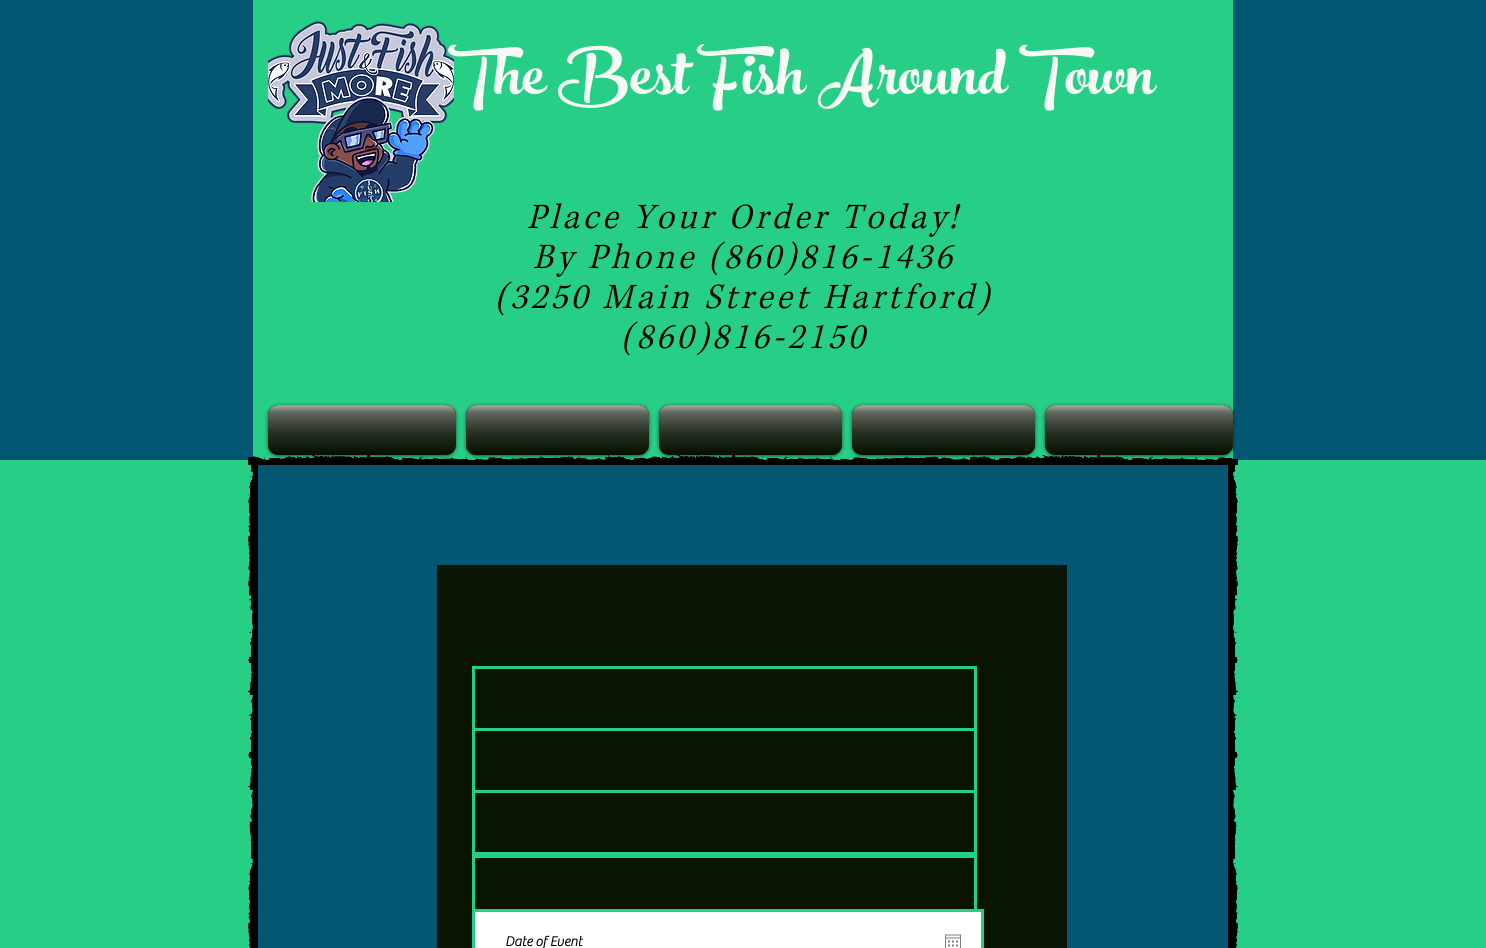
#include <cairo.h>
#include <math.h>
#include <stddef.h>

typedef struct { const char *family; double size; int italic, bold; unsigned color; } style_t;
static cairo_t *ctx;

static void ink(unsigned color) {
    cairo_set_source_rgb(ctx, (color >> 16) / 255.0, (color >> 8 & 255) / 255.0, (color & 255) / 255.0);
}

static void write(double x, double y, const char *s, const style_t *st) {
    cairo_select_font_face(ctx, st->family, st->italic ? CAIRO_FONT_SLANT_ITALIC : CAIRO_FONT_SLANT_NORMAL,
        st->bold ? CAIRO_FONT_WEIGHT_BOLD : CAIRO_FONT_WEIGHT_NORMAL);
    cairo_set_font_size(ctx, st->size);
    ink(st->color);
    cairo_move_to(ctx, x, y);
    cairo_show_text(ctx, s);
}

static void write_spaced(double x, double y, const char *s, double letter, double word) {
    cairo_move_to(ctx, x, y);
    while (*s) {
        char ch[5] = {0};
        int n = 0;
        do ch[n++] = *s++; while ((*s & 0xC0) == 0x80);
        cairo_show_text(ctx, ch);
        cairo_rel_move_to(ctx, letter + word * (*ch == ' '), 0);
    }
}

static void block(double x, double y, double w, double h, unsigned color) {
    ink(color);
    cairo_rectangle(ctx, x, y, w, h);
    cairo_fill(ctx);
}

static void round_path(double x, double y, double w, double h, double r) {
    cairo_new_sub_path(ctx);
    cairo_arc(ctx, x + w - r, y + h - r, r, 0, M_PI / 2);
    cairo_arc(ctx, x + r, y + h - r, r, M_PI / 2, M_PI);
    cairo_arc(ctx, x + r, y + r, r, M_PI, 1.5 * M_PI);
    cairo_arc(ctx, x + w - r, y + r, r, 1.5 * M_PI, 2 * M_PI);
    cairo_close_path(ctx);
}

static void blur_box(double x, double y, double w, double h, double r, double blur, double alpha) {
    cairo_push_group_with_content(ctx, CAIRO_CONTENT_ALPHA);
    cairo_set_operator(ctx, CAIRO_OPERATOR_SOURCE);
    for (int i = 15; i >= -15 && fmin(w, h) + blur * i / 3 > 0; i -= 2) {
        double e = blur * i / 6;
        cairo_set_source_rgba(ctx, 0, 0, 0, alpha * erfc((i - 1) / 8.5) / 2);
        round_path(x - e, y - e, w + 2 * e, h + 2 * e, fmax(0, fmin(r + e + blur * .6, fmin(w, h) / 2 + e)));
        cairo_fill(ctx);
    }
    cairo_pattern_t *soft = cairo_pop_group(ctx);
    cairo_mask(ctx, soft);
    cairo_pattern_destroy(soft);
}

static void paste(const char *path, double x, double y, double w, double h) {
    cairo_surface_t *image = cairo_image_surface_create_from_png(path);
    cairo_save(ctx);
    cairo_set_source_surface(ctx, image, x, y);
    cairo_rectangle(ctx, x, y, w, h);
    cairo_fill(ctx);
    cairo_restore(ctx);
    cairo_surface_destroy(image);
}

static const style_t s1 = {"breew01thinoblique", 14, 0, 1, 0x000000};

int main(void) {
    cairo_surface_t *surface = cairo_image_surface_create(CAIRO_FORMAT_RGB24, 1486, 948);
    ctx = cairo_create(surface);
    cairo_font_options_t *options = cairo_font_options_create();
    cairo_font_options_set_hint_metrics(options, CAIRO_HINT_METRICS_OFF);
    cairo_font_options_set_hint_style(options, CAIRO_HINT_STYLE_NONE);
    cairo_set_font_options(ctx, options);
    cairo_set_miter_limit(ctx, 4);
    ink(0x27cf86);
    cairo_paint(ctx);
    block(0, 0, 1486, 460, 0x035772);
    block(253, 0, 980, 460, 0x27cf86);
    cairo_select_font_face(ctx, "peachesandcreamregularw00", CAIRO_FONT_SLANT_NORMAL, CAIRO_FONT_WEIGHT_NORMAL);
    cairo_set_font_size(ctx, 96);
    ink(0xf6f9f5);
    write_spaced(448, 94, "The Best Fish Around Town", 0.95, 0);
    paste("pic1.png", 268, 21, 186, 181);
    paste("pic2.png", 527, 203, 434, 34);
    paste("pic3.png", 534, 241, 421, 36);
    paste("pic4.png", 498, 281, 493, 35);
    paste("pic5.png", 624, 321, 243, 35);
    ink(0x000000);
    blur_box(268, 406, 188, 50, 10, 2, 0.6);
    ink(0x091405);
    round_path(268, 405, 188, 50, 10);
    cairo_fill(ctx);
    paste("pic6.png", 268, 405, 188, 46);
    paste("pic7.png", 268, 447, 188, 8);
    ink(0x000000);
    blur_box(466, 406, 183, 50, 10, 2, 0.6);
    ink(0x091405);
    round_path(466, 405, 183, 50, 10);
    cairo_fill(ctx);
    paste("pic8.png", 466, 405, 183, 46);
    paste("pic9.png", 466, 447, 183, 8);
    ink(0x000000);
    blur_box(659, 406, 183, 50, 10, 2, 0.6);
    ink(0x091405);
    round_path(659, 405, 183, 50, 10);
    cairo_fill(ctx);
    paste("pic10.png", 659, 405, 183, 46);
    paste("pic9.png", 659, 447, 183, 8);
    ink(0x000000);
    blur_box(852, 406, 183, 50, 10, 2, 0.6);
    ink(0x091405);
    round_path(852, 405, 183, 50, 10);
    cairo_fill(ctx);
    paste("pic10.png", 852, 405, 183, 46);
    paste("pic9.png", 852, 447, 183, 8);
    ink(0x000000);
    blur_box(1045, 406, 188, 50, 10, 2, 0.6);
    ink(0x091405);
    round_path(1045, 405, 188, 50, 10);
    cairo_fill(ctx);
    paste("pic6.png", 1045, 405, 188, 46);
    paste("pic7.png", 1045, 447, 188, 8);
    block(258, 465, 970, 483, 0x035772);
    paste("pic11.png", 248, 455, 990, 10);
    paste("pic12.png", 248, 465, 10, 483);
    paste("pic13.png", 1228, 465, 10, 483);
    block(437, 565, 630, 383, 0x091405);
    cairo_rectangle(ctx, 473.5, 667.5, 502, 62);
    ink(0x22ce88);
    cairo_set_line_width(ctx, 3);
    cairo_stroke(ctx);
    cairo_rectangle(ctx, 473.5, 729.5, 502, 62);
    cairo_stroke(ctx);
    cairo_rectangle(ctx, 473.5, 791.5, 502, 62);
    cairo_stroke(ctx);
    cairo_rectangle(ctx, 473.5, 856.5, 502, 62);
    cairo_stroke(ctx);
    ink(0xffffff);
    cairo_rectangle(ctx, 473.5, 910.5, 509, 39);
    cairo_fill_preserve(ctx);
    ink(0x22ce88);
    cairo_stroke(ctx);
    write(505, 946, "Date of Event", &s1);
    paste("pic14.png", 945, 934, 16, 14);
    cairo_surface_write_to_png(surface, "screenshot.png");
    cairo_font_options_destroy(options);
    cairo_destroy(ctx);
    cairo_surface_destroy(surface);
    return 0;
}
